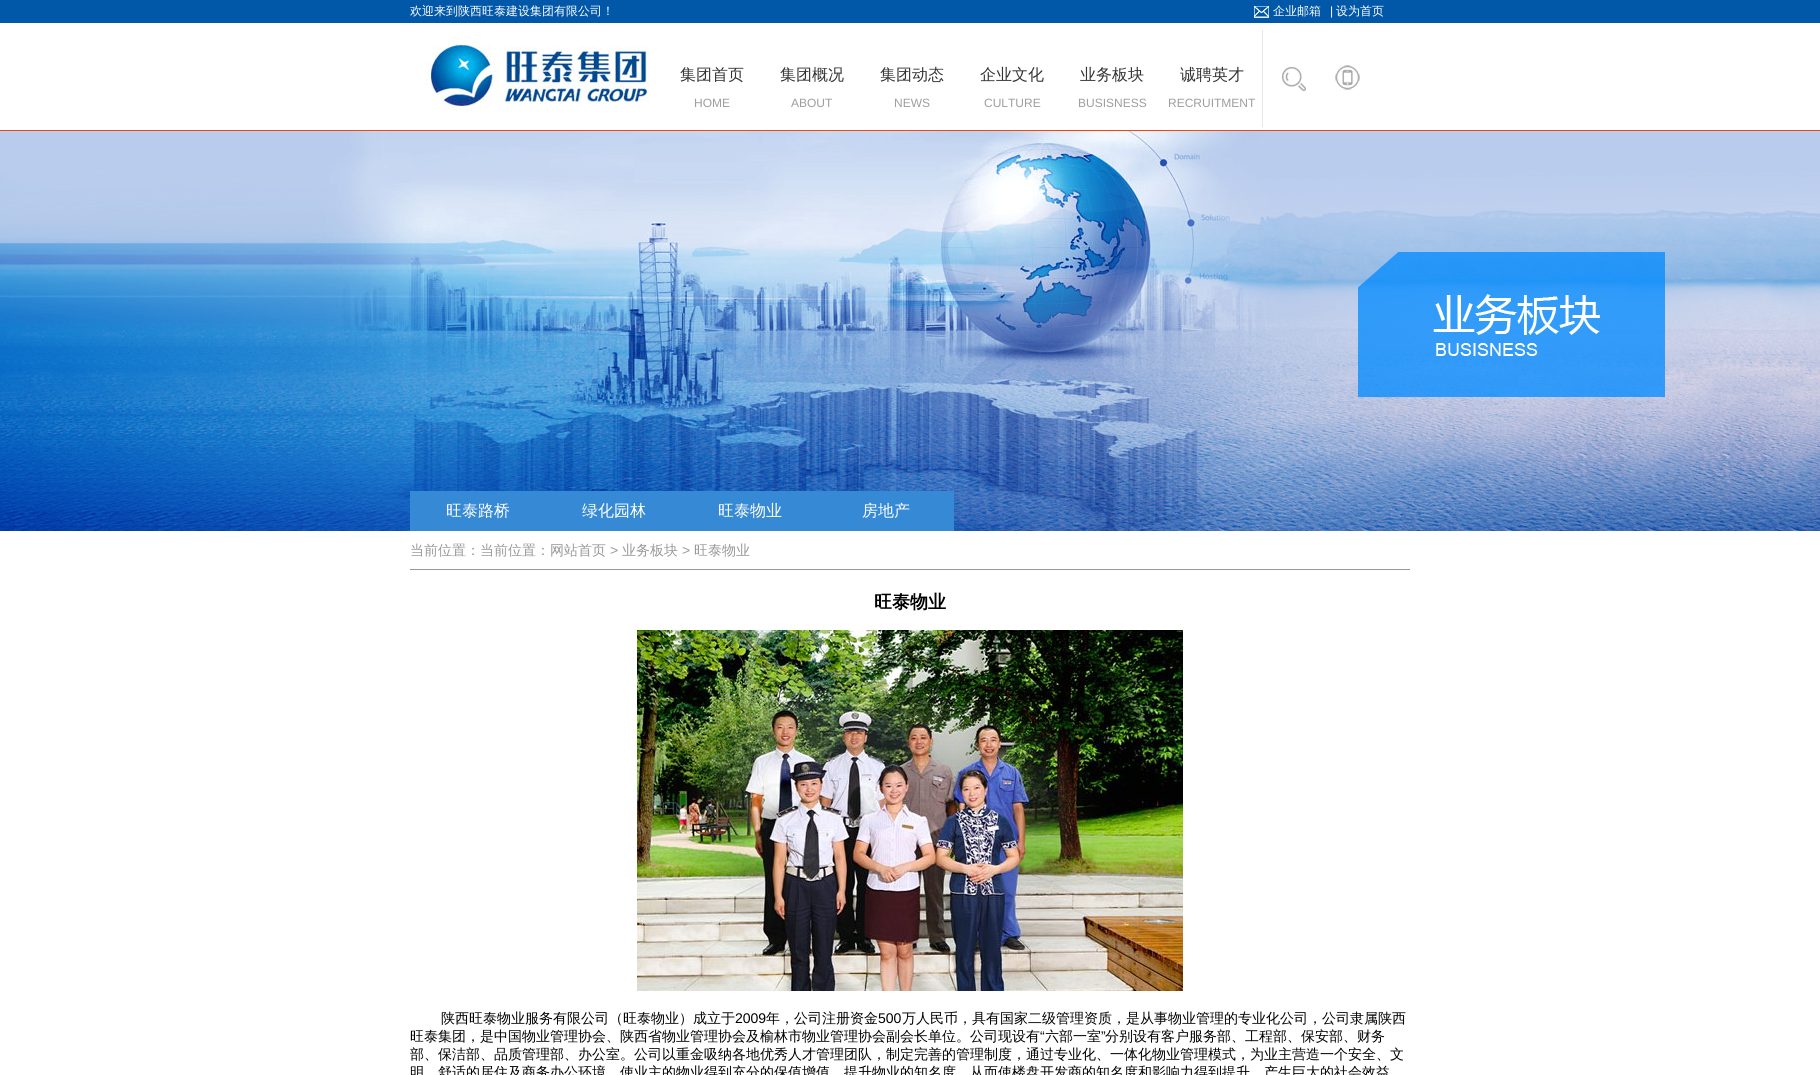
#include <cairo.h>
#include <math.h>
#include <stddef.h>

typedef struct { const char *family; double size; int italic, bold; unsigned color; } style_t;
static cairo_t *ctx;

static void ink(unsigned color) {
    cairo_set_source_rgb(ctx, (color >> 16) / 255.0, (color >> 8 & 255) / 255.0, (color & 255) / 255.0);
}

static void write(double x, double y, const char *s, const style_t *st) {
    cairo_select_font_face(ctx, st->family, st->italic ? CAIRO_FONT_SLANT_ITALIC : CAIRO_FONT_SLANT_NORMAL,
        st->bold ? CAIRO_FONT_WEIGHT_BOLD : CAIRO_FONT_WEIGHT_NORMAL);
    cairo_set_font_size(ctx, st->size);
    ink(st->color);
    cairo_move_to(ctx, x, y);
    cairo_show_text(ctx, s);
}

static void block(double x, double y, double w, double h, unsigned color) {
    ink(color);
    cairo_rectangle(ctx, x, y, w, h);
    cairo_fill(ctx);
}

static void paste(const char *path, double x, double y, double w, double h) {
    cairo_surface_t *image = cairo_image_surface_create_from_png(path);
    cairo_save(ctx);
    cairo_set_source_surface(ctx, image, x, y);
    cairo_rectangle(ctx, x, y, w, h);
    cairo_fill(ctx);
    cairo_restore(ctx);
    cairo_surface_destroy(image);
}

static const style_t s1 = {"WenQuanYi Zen Hei Medium", 12, 0, 0, 0xffffff};
static const style_t s2 = {"Liberation Sans", 12, 0, 0, 0xffffff};
static const style_t s3 = {"WenQuanYi Zen Hei Medium", 16, 0, 0, 0x333333};
static const style_t s4 = {"Liberation Sans", 12, 0, 0, 0x9f9d9d};
static const style_t s5 = {"WenQuanYi Zen Hei Medium", 16, 0, 0, 0xffffff};
static const style_t s6 = {"WenQuanYi Zen Hei Medium", 14, 0, 0, 0x999999};
static const style_t s7 = {"Liberation Sans", 14, 0, 0, 0x999999};
static const style_t s8 = {"WenQuanYi Zen Hei", 18, 0, 1, 0x000000};
static const style_t s9 = {"WenQuanYi Zen Hei Medium", 14, 0, 0, 0x000000};
static const style_t s10 = {"Liberation Sans", 14, 0, 0, 0x000000};

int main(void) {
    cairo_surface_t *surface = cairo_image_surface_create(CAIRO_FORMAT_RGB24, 1820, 1075);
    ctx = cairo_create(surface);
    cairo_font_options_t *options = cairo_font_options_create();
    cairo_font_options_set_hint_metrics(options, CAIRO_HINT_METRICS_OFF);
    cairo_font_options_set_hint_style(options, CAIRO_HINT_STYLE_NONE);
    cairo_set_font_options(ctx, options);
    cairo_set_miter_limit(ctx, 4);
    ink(0xffffff);
    cairo_paint(ctx);
    block(0, 0, 1820, 23, 0x0158a8);
    write(410, 15, "欢迎来到陕西旺泰建设集团有限公司！", &s1);
    paste("pic1.png", 1254, 6, 15, 12);
    write(1273, 15, "企业邮箱", &s1);
    write(1330, 15, "|", &s2);
    write(1336, 15, "设为首页", &s1);
    paste("pic2.png", 426, 38, 224, 72);
    write(680, 80, "集团首页", &s3);
    write(694, 107, "HOME", &s4);
    write(780, 80, "集团概况", &s3);
    write(791, 107, "ABOUT", &s4);
    write(880, 80, "集团动态", &s3);
    write(894, 107, "NEWS", &s4);
    write(980, 80, "企业文化", &s3);
    write(984, 107, "CULTURE", &s4);
    write(1080, 80, "业务板块", &s3);
    write(1078, 107, "BUSISNESS", &s4);
    write(1180, 80, "诚聘英才", &s3);
    write(1168, 107, "RECRUITMENT", &s4);
    block(1262, 30, 1, 97, 0xe6e6e6);
    paste("pic3.png", 1282, 67, 24, 24);
    paste("pic4.png", 1335, 65, 25, 25);
    block(0, 130, 1820, 1, 0xf3460d);
    paste("pic5.png", 0, 131, 1820, 400);
    block(410, 491, 544, 40, 0x3689d4);
    write(446, 516, "旺泰路桥", &s5);
    write(582, 516, "绿化园林", &s5);
    write(718, 516, "旺泰物业", &s5);
    write(862, 516, "房地产", &s5);
    block(410, 569, 1000, 1, 0x999999);
    write(410, 555, "当前位置：当前位置：网站首页", &s6);
    write(610, 555, ">", &s7);
    write(622, 555, "业务板块", &s6);
    write(682, 555, ">", &s7);
    write(694, 555, "旺泰物业", &s6);
    write(874, 608, "旺泰物业", &s8);
    paste("pic6.png", 637, 630, 546, 361);
    write(441, 1023, "陕西旺泰物业服务有限公司（旺泰物业）成立于", &s9);
    write(735, 1023, "2009", &s10);
    write(766, 1023, "年，公司注册资金", &s9);
    write(878, 1023, "500", &s10);
    write(902, 1023, "万人民币，具有国家二级管理资质，是从事物业管理的专业化公司，公司隶属陕西", &s9);
    write(410, 1041, "旺泰集团，是中国物业管理协会、陕西省物业管理协会及榆林市物业管理协会副会长单位。公司现设有", &s9);
    write(1040, 1041, "“", &s10);
    write(1045, 1041, "六部一室", &s9);
    write(1101, 1041, "”", &s10);
    write(1105, 1041, "分别设有客户服务部、工程部、保安部、财务", &s9);
    write(410, 1059, "部、保洁部、品质管理部、办公室。公司以重金吸纳各地优秀人才管理团队，制定完善的管理制度，通过专业化、一体化物业管理模式，为业主营造一个安全、文", &s9);
    write(410, 1077, "明、舒适的居住及商务办公环境。使业主的物业得到充分的保值增值，提升物业的知名度，从而使楼盘开发商的知名度和影响力得到提升，产生巨大的社会效益", &s9);
    cairo_surface_write_to_png(surface, "screenshot.png");
    cairo_font_options_destroy(options);
    cairo_destroy(ctx);
    cairo_surface_destroy(surface);
    return 0;
}
